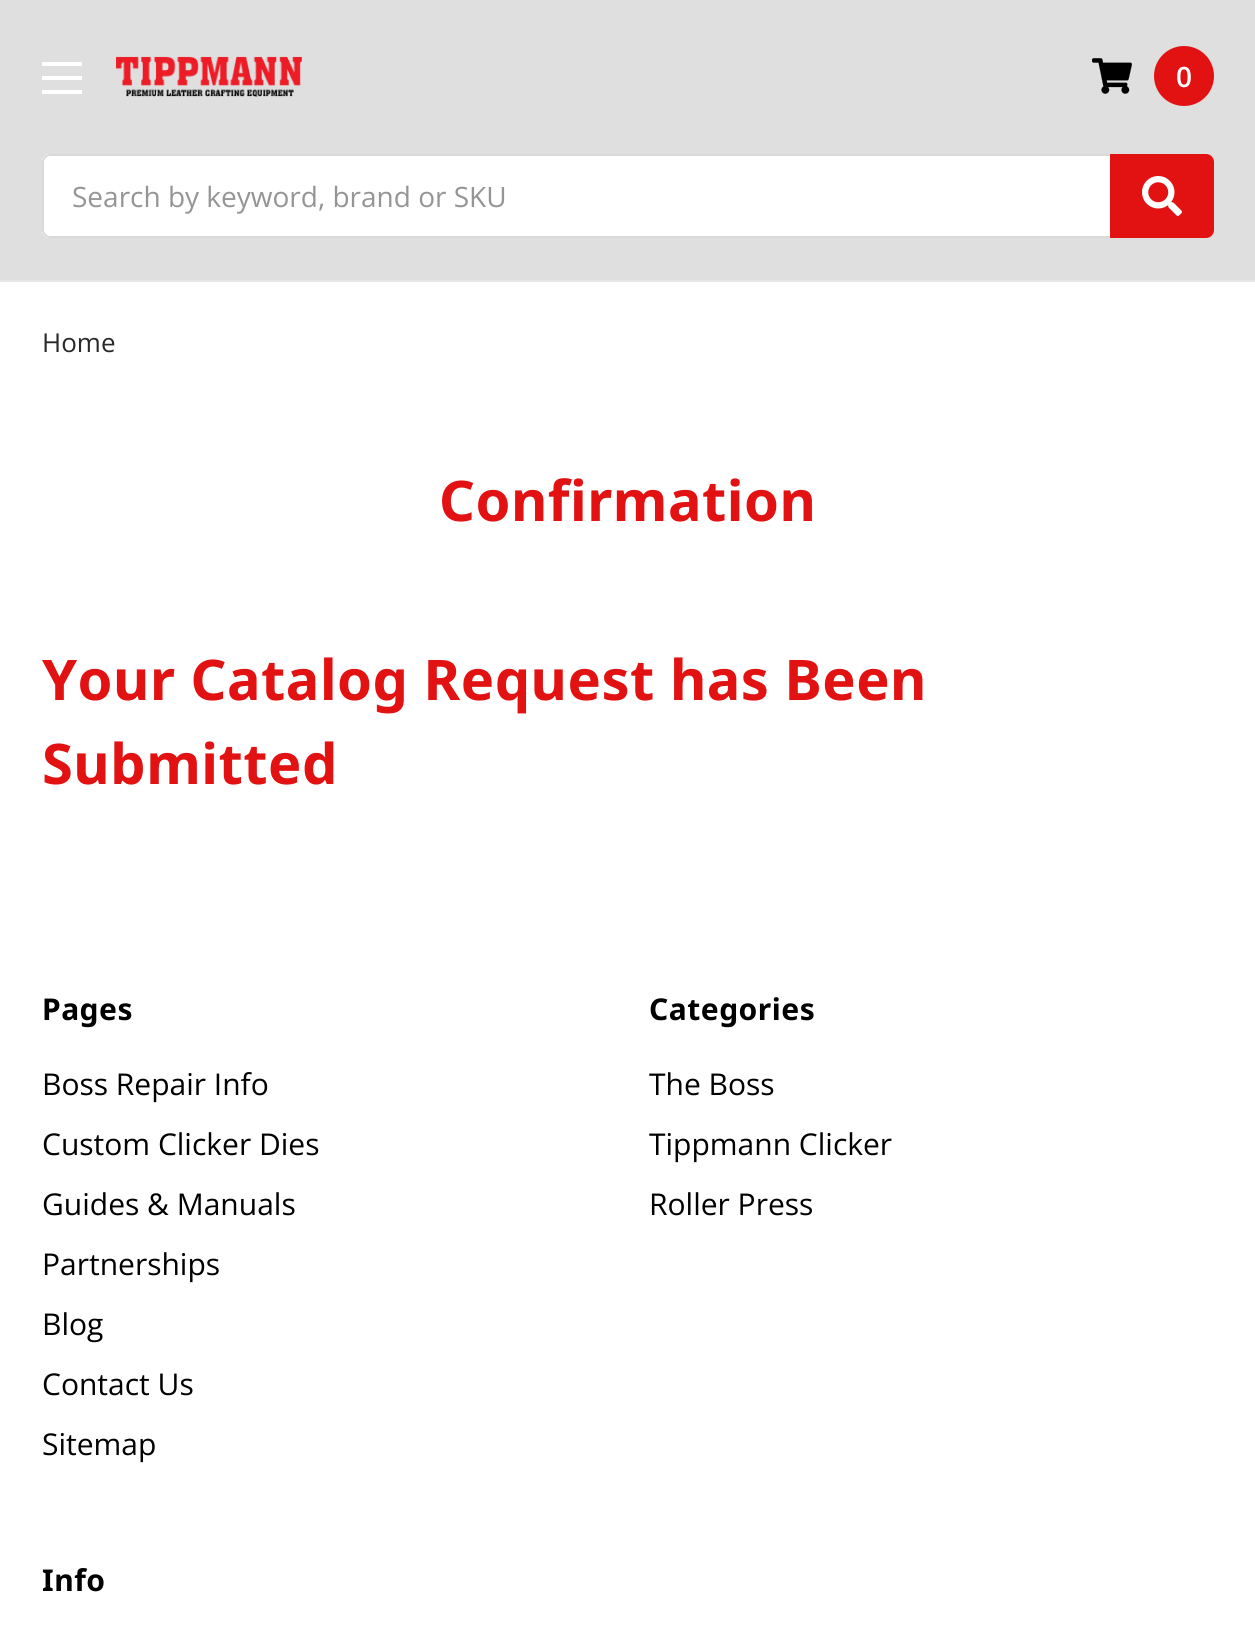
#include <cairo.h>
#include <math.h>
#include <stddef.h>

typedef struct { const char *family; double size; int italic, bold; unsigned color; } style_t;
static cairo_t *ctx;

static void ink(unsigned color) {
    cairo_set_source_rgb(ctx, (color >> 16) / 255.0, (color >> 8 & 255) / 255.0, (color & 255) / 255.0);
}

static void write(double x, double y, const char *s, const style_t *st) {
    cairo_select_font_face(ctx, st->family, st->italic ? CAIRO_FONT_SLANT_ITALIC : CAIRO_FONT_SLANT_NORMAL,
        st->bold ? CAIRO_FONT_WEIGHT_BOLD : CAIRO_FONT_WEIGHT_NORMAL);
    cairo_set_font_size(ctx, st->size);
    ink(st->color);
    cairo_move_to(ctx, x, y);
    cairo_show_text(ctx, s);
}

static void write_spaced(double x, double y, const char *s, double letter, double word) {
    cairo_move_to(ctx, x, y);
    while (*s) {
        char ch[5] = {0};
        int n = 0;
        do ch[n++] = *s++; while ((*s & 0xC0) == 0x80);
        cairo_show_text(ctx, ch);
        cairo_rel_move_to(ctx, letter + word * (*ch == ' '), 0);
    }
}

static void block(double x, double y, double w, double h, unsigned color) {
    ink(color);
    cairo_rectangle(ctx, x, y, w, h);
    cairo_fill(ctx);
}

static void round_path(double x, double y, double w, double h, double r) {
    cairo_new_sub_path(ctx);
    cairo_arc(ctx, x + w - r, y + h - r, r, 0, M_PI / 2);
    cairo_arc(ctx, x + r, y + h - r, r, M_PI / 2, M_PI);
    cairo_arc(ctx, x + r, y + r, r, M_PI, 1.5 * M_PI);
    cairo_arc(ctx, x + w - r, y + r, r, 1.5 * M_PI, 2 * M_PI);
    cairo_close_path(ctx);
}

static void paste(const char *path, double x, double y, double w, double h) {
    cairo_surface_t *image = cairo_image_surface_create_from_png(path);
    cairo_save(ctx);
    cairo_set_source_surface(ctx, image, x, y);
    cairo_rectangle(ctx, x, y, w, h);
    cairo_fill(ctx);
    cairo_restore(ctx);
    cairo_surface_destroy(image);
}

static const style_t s1 = {"Open Sans SemiBold", 28, 0, 0, 0xffffff};
static const style_t s2 = {"Open Sans", 28, 0, 0, 0x959595};
static const style_t s3 = {"Open Sans", 26, 0, 0, 0x292929};
static const style_t s4 = {"Open Sans", 30, 0, 0, 0x000000};

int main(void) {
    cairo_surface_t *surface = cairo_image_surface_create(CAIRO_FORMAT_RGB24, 1255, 1641);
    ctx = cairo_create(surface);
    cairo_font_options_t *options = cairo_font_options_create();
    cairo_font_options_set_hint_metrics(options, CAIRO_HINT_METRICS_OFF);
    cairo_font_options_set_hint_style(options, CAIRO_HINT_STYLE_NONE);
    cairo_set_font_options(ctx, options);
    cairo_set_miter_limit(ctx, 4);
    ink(0xffffff);
    cairo_paint(ctx);
    block(0, 0, 1255, 280, 0xdfdfdf);
    block(0, 280, 1255, 2, 0xe5e5e5);
    block(42, 76, 40, 4, 0xffffff);
    block(42, 62, 40, 4, 0xffffff);
    block(42, 90, 40, 4, 0xffffff);
    paste("pic1.png", 116, 56, 186, 41);
    paste("pic2.png", 1092, 58, 40, 36);
    ink(0xe21212);
    cairo_arc(ctx, 1184, 76, 30, 0, 2 * M_PI);
    cairo_fill(ctx);
    write(1176, 87, "0", &s1);
    round_path(42, 154, 1172, 84, 8);
    cairo_fill(ctx);
    ink(0xd9d9d9);
    cairo_set_fill_rule(ctx, CAIRO_FILL_RULE_EVEN_ODD);
    cairo_new_path(ctx);
    cairo_move_to(ctx, 50, 154);
    cairo_curve_to(ctx, 46, 154, 42, 158, 42, 162);
    cairo_line_to(ctx, 42, 230);
    cairo_curve_to(ctx, 42, 234, 46, 238, 50, 238);
    cairo_line_to(ctx, 1206, 238);
    cairo_curve_to(ctx, 1208, 238, 1210, 237, 1211, 236);
    cairo_line_to(ctx, 50, 236);
    cairo_curve_to(ctx, 47, 236, 44, 233, 44, 230);
    cairo_line_to(ctx, 44, 162);
    cairo_curve_to(ctx, 44, 159, 47, 156, 50, 156);
    cairo_line_to(ctx, 1211, 156);
    cairo_curve_to(ctx, 1210, 155, 1208, 154, 1206, 154);
    cairo_close_path(ctx);
    cairo_move_to(ctx, 1212, 157);
    cairo_line_to(ctx, 1212, 235);
    cairo_curve_to(ctx, 1213, 234, 1214, 232, 1214, 230);
    cairo_line_to(ctx, 1214, 162);
    cairo_curve_to(ctx, 1214, 160, 1213, 158, 1212, 157);
    cairo_close_path(ctx);
    cairo_fill(ctx);
    write(72, 207, "Search by keyword, brand or SKU", &s2);
    ink(0xe21212);
    cairo_new_path(ctx);
    cairo_move_to(ctx, 1110, 154);
    cairo_line_to(ctx, 1206, 154);
    cairo_curve_to(ctx, 1210.5, 154, 1214, 157.5, 1214, 162);
    cairo_line_to(ctx, 1214, 230);
    cairo_curve_to(ctx, 1214, 234.5, 1210.5, 238, 1206, 238);
    cairo_line_to(ctx, 1110, 238);
    cairo_close_path(ctx);
    cairo_fill(ctx);
    paste("pic3.png", 1142, 176, 40, 40);
    write(42, 352, "Home", &s3);
    cairo_select_font_face(ctx, "Noto Sans", CAIRO_FONT_SLANT_NORMAL, CAIRO_FONT_WEIGHT_BOLD);
    cairo_set_font_size(ctx, 56);
    ink(0xe21212);
    write_spaced(439, 521, "Confirmation", 0.5, 0);
    write_spaced(42, 700, "Your Catalog Request has Been", 0.5, 0);
    write_spaced(42, 784, "Submitted", 0.5, 0);
    cairo_set_font_size(ctx, 30);
    ink(0x000000);
    write_spaced(42, 1020, "Pages", 0.5, 0);
    write(42, 1095, "Boss Repair Info", &s4);
    write(42, 1155, "Custom Clicker Dies", &s4);
    write(42, 1215, "Guides & Manuals", &s4);
    write(42, 1275, "Partnerships", &s4);
    write(42, 1335, "Blog", &s4);
    write(42, 1395, "Contact Us", &s4);
    write(42, 1455, "Sitemap", &s4);
    cairo_select_font_face(ctx, "Noto Sans", CAIRO_FONT_SLANT_NORMAL, CAIRO_FONT_WEIGHT_BOLD);
    write_spaced(649, 1020, "Categories", 0.5, 0);
    write(649, 1095, "The Boss", &s4);
    write(649, 1155, "Tippmann Clicker", &s4);
    write(649, 1215, "Roller Press", &s4);
    cairo_select_font_face(ctx, "Noto Sans", CAIRO_FONT_SLANT_NORMAL, CAIRO_FONT_WEIGHT_BOLD);
    write_spaced(42, 1591, "Info", 0.5, 0);
    cairo_surface_write_to_png(surface, "screenshot.png");
    cairo_font_options_destroy(options);
    cairo_destroy(ctx);
    cairo_surface_destroy(surface);
    return 0;
}
